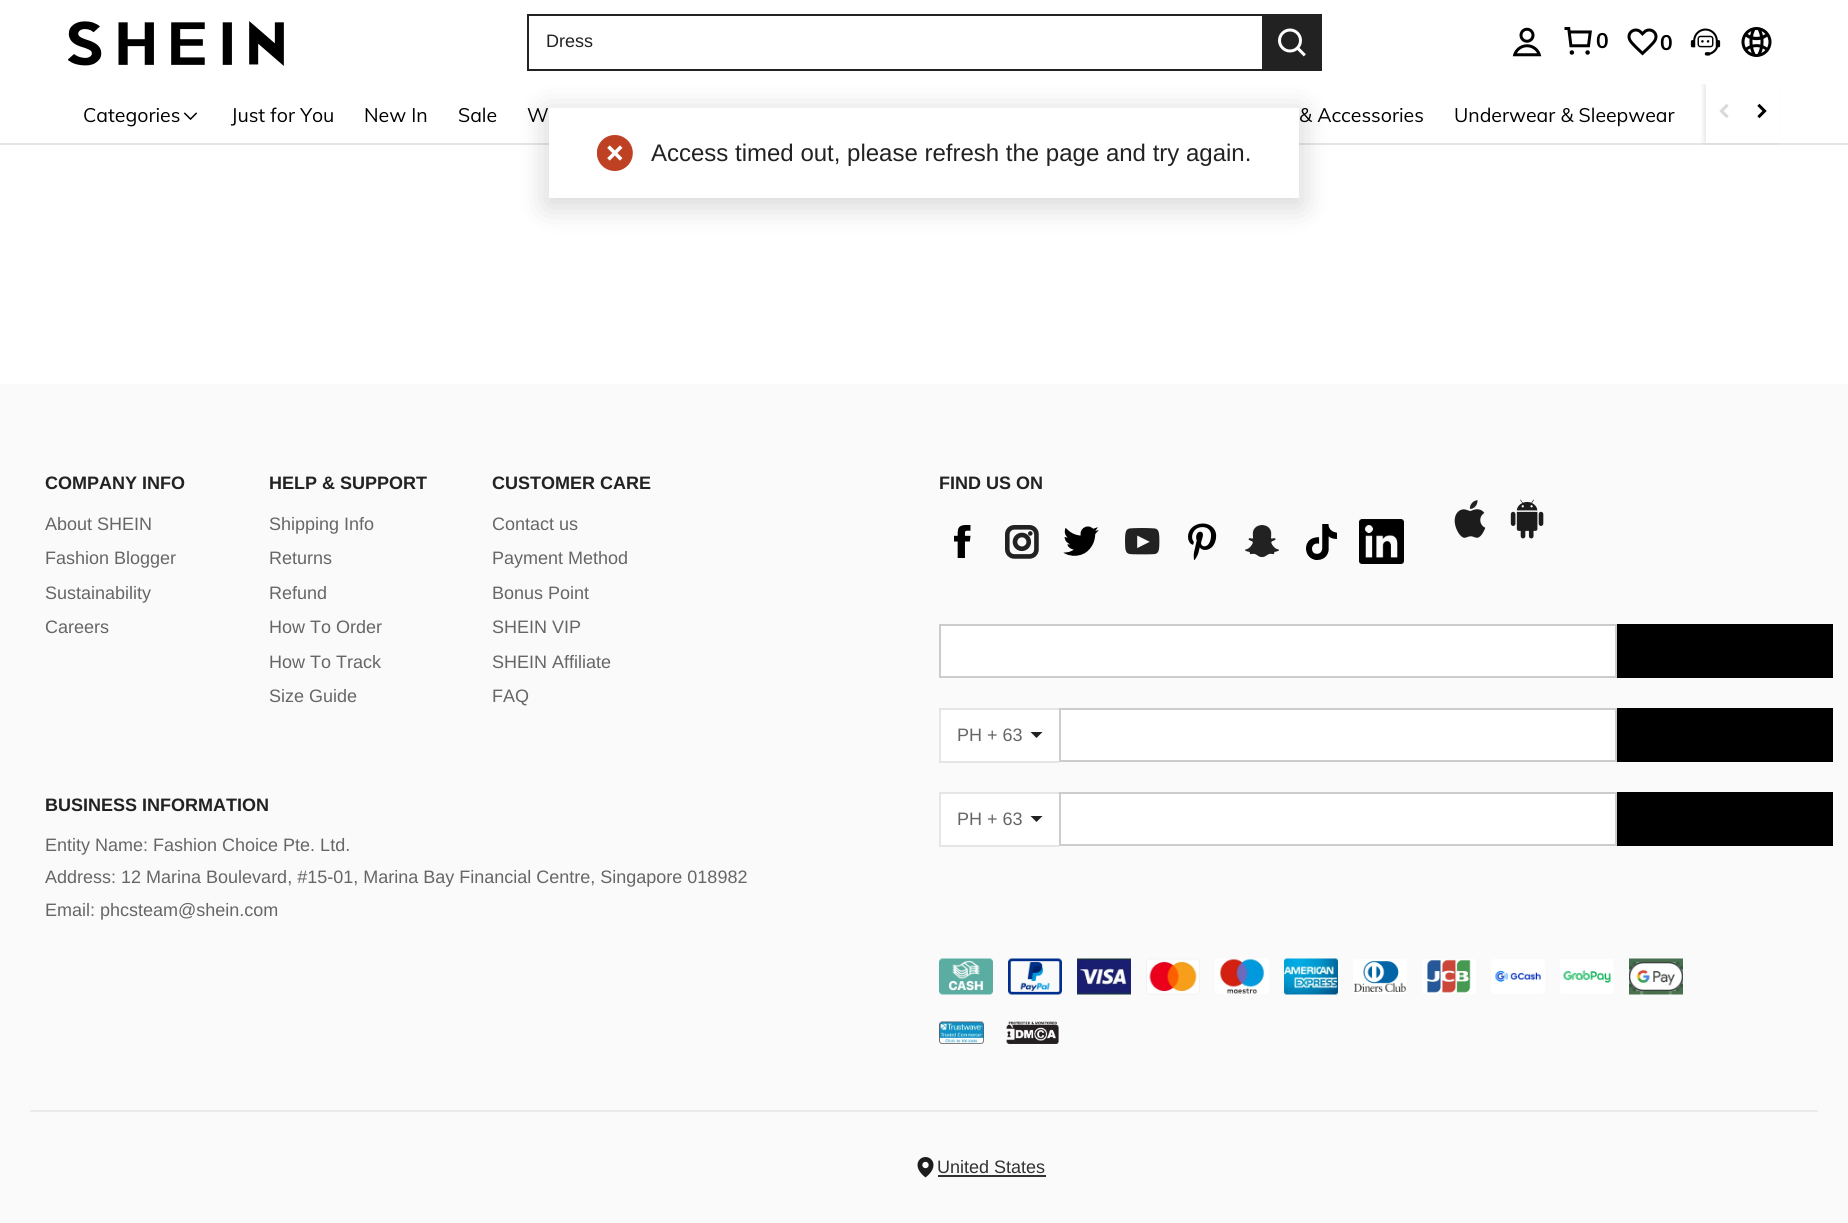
#include <cairo.h>
#include <math.h>
#include <stddef.h>

typedef struct { const char *family; double size; int italic, bold; unsigned color; } style_t;
static cairo_t *ctx;

static void ink(unsigned color) {
    cairo_set_source_rgb(ctx, (color >> 16) / 255.0, (color >> 8 & 255) / 255.0, (color & 255) / 255.0);
}

static void write(double x, double y, const char *s, const style_t *st) {
    cairo_select_font_face(ctx, st->family, st->italic ? CAIRO_FONT_SLANT_ITALIC : CAIRO_FONT_SLANT_NORMAL,
        st->bold ? CAIRO_FONT_WEIGHT_BOLD : CAIRO_FONT_WEIGHT_NORMAL);
    cairo_set_font_size(ctx, st->size);
    ink(st->color);
    cairo_move_to(ctx, x, y);
    cairo_show_text(ctx, s);
}

static void block(double x, double y, double w, double h, unsigned color) {
    ink(color);
    cairo_rectangle(ctx, x, y, w, h);
    cairo_fill(ctx);
}

static void round_path(double x, double y, double w, double h, double r) {
    cairo_new_sub_path(ctx);
    cairo_arc(ctx, x + w - r, y + h - r, r, 0, M_PI / 2);
    cairo_arc(ctx, x + r, y + h - r, r, M_PI / 2, M_PI);
    cairo_arc(ctx, x + r, y + r, r, M_PI, 1.5 * M_PI);
    cairo_arc(ctx, x + w - r, y + r, r, 1.5 * M_PI, 2 * M_PI);
    cairo_close_path(ctx);
}

static void blur_box(double x, double y, double w, double h, double r, double blur, double alpha) {
    cairo_push_group_with_content(ctx, CAIRO_CONTENT_ALPHA);
    cairo_set_operator(ctx, CAIRO_OPERATOR_SOURCE);
    for (int i = 15; i >= -15 && fmin(w, h) + blur * i / 3 > 0; i -= 2) {
        double e = blur * i / 6;
        cairo_set_source_rgba(ctx, 0, 0, 0, alpha * erfc((i - 1) / 8.5) / 2);
        round_path(x - e, y - e, w + 2 * e, h + 2 * e, fmax(0, fmin(r + e + blur * .6, fmin(w, h) / 2 + e)));
        cairo_fill(ctx);
    }
    cairo_pattern_t *soft = cairo_pop_group(ctx);
    cairo_mask(ctx, soft);
    cairo_pattern_destroy(soft);
}

static void paste(const char *path, double x, double y, double w, double h) {
    cairo_surface_t *image = cairo_image_surface_create_from_png(path);
    cairo_save(ctx);
    cairo_set_source_surface(ctx, image, x, y);
    cairo_rectangle(ctx, x, y, w, h);
    cairo_fill(ctx);
    cairo_restore(ctx);
    cairo_surface_destroy(image);
}

static const style_t s1 = {"Liberation Sans", 18, 0, 0, 0x222222};
static const style_t s2 = {"Muli", 21, 0, 1, 0x000000};
static const style_t s3 = {"Muli", 19.5, 0, 0, 0x000000};
static const style_t s4 = {"Liberation Sans", 18, 0, 1, 0x222222};
static const style_t s5 = {"Liberation Sans", 18, 0, 0, 0x666666};
static const style_t s6 = {"Liberation Sans", 18, 0, 0, 0x323232};
static const style_t s7 = {"Liberation Sans", 24, 0, 0, 0x222222};

int main(void) {
    cairo_surface_t *surface = cairo_image_surface_create(CAIRO_FORMAT_RGB24, 1848, 1223);
    ctx = cairo_create(surface);
    cairo_font_options_t *options = cairo_font_options_create();
    cairo_font_options_set_hint_metrics(options, CAIRO_HINT_METRICS_OFF);
    cairo_font_options_set_hint_style(options, CAIRO_HINT_STYLE_NONE);
    cairo_set_font_options(ctx, options);
    cairo_set_miter_limit(ctx, 4);
    ink(0xffffff);
    cairo_paint(ctx);
    block(0, 143, 1848, 2, 0xe5e5e5);
    ink(0x000000);
    blur_box(1703, 84, 75, 59, 0, 2, 0.08);
    block(1702, 82, 77, 2, 0xffffff);
    paste("pic1.png", 68, 21, 216, 45);
    block(527, 14, 735, 2, 0x222222);
    block(527, 69, 735, 2, 0x222222);
    block(527, 14, 2, 57, 0x222222);
    write(546, 47, "Dress", &s1);
    block(1262, 14, 60, 57, 0x222222);
    paste("pic2.png", 1278, 28, 28, 29);
    paste("pic3.png", 1512, 27, 30, 30);
    paste("pic4.png", 1564, 27, 28, 28);
    write(1596, 48, "0", &s2);
    paste("pic5.png", 1627, 28, 31, 28);
    write(1660, 50, "0", &s2);
    paste("pic6.png", 1690, 28, 31, 28);
    paste("pic7.png", 1741, 27, 31, 30);
    write(83, 122, "Categories", &s3);
    paste("pic8.png", 183, 112, 15, 8);
    write(231, 122, "Just for You", &s3);
    write(364, 122, "New In", &s3);
    write(458, 122, "Sale", &s3);
    write(527, 122, "W", &s3);
    write(1299, 122, "& Accessories", &s3);
    write(1454, 122, "Underwear & Sleepwear", &s3);
    block(1706, 84, 74, 59, 0xffffff);
    paste("pic9.png", 1719, 104, 10, 14);
    paste("pic10.png", 1757, 103, 10, 16);
    block(0, 384, 1848, 839, 0xfafafa);
    write(45, 489, "COMPANY INFO", &s4);
    write(45, 530, "About SHEIN", &s5);
    write(45, 564, "Fashion Blogger", &s5);
    write(45, 599, "Sustainability", &s5);
    write(45, 633, "Careers", &s5);
    write(269, 489, "HELP & SUPPORT", &s4);
    write(269, 530, "Shipping Info", &s5);
    write(269, 564, "Returns", &s5);
    write(269, 599, "Refund", &s5);
    write(269, 633, "How To Order", &s5);
    write(269, 668, "How To Track", &s5);
    write(269, 702, "Size Guide", &s5);
    write(492, 489, "CUSTOMER CARE", &s4);
    write(492, 530, "Contact us", &s5);
    write(492, 564, "Payment Method", &s5);
    write(492, 599, "Bonus Point", &s5);
    write(492, 633, "SHEIN VIP", &s5);
    write(492, 668, "SHEIN Affiliate", &s5);
    write(492, 702, "FAQ", &s5);
    write(45, 811, "BUSINESS INFORMATION", &s4);
    write(45, 851, "Entity Name: Fashion Choice Pte. Ltd.", &s5);
    write(45, 883, "Address: 12 Marina Boulevard, #15-01, Marina Bay Financial Centre, Singapore 018982", &s5);
    write(45, 916, "Email: phcsteam@shein.com", &s5);
    write(939, 489, "FIND US ON", &s4);
    paste("pic11.png", 954, 525, 17, 33);
    paste("pic12.png", 1005, 525, 34, 34);
    paste("pic13.png", 1063, 526, 36, 30);
    paste("pic14.png", 1125, 528, 35, 27);
    paste("pic15.png", 1188, 523, 29, 38);
    paste("pic16.png", 1245, 525, 34, 33);
    paste("pic17.png", 1306, 524, 31, 36);
    paste("pic18.png", 1359, 519, 45, 45);
    paste("pic19.png", 1454, 500, 32, 38);
    paste("pic20.png", 1510, 499, 34, 40);
    ink(0xffffff);
    cairo_rectangle(ctx, 940, 625, 676, 52);
    cairo_fill_preserve(ctx);
    ink(0xcccccc);
    cairo_stroke(ctx);
    block(1617, 624, 216, 54, 0x000000);
    block(941, 710, 118, 51, 0xffffff);
    block(939, 708, 120, 2, 0xe5e5e5);
    block(939, 761, 120, 2, 0xe5e5e5);
    block(939, 708, 2, 54, 0xe5e5e5);
    write(957, 741, "PH + 63", &s5);
    ink(0x222222);
    cairo_new_path(ctx);
    cairo_move_to(ctx, 1030.5, 732);
    cairo_line_to(ctx, 1042.5, 732);
    cairo_line_to(ctx, 1036.5, 738);
    cairo_close_path(ctx);
    cairo_fill(ctx);
    ink(0xffffff);
    cairo_rectangle(ctx, 1060, 709, 556, 52);
    cairo_fill_preserve(ctx);
    ink(0xcccccc);
    cairo_stroke(ctx);
    block(1617, 708, 216, 54, 0x000000);
    block(941, 794, 118, 51, 0xffffff);
    block(939, 792, 120, 2, 0xe5e5e5);
    block(939, 845, 120, 2, 0xe5e5e5);
    block(939, 792, 2, 54, 0xe5e5e5);
    write(957, 825, "PH + 63", &s5);
    ink(0x222222);
    cairo_new_path(ctx);
    cairo_move_to(ctx, 1030.5, 816);
    cairo_line_to(ctx, 1042.5, 816);
    cairo_line_to(ctx, 1036.5, 822);
    cairo_close_path(ctx);
    cairo_fill(ctx);
    ink(0xffffff);
    cairo_rectangle(ctx, 1060, 793, 556, 52);
    cairo_fill_preserve(ctx);
    ink(0xcccccc);
    cairo_stroke(ctx);
    block(1617, 792, 216, 54, 0x000000);
    paste("pic21.png", 939, 958, 54, 37);
    paste("pic22.png", 1008, 958, 54, 37);
    paste("pic23.png", 1077, 958, 54, 37);
    paste("pic24.png", 1146, 958, 54, 37);
    paste("pic25.png", 1215, 958, 54, 36);
    paste("pic26.png", 1284, 958, 54, 37);
    paste("pic27.png", 1353, 959, 54, 35);
    paste("pic28.png", 1422, 959, 54, 35);
    paste("pic29.png", 1491, 959, 54, 35);
    paste("pic30.png", 1560, 959, 54, 35);
    paste("pic31.png", 1629, 958, 54, 37);
    paste("pic32.png", 939, 1021, 45, 23);
    paste("pic33.png", 1006, 1021, 53, 23);
    block(30, 1110, 1788, 2, 0xebebeb);
    paste("pic34.png", 917, 1157, 17, 21);
    write(937, 1173, "United States", &s6);
    block(938, 1175, 108, 2, 0x323232);
    ink(0x000000);
    blur_box(546, 111, 756, 96, 0, 15, 0.16);
    block(549, 108, 750, 90, 0xffffff);
    paste("pic35.png", 597, 135, 36, 36);
    write(651, 161, "Access timed out, please refresh the page and try again.", &s7);
    cairo_surface_write_to_png(surface, "screenshot.png");
    cairo_font_options_destroy(options);
    cairo_destroy(ctx);
    cairo_surface_destroy(surface);
    return 0;
}
